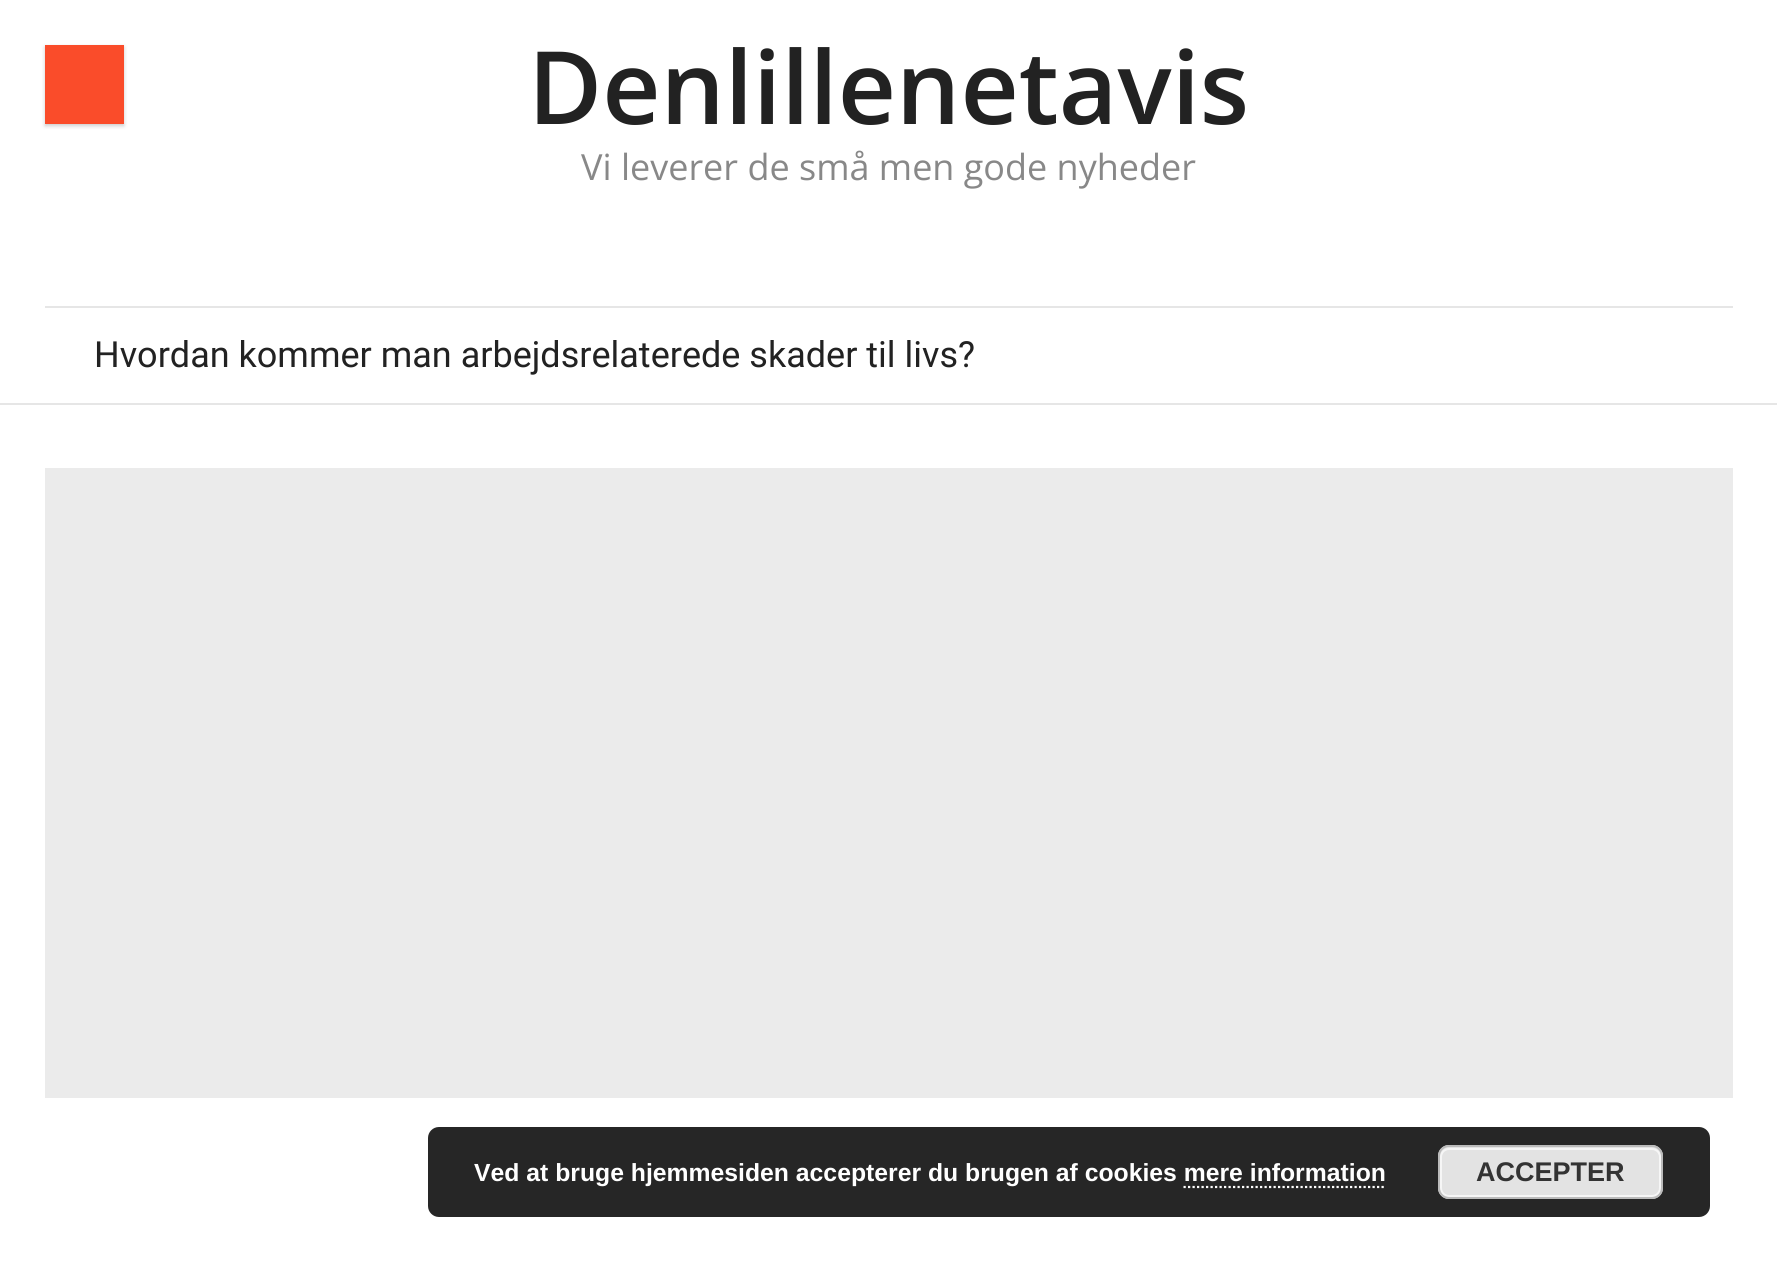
#include <cairo.h>
#include <math.h>
#include <stddef.h>

typedef struct { const char *family; double size; int italic, bold; unsigned color; } style_t;
static cairo_t *ctx;

static void ink(unsigned color) {
    cairo_set_source_rgb(ctx, (color >> 16) / 255.0, (color >> 8 & 255) / 255.0, (color & 255) / 255.0);
}

static void write(double x, double y, const char *s, const style_t *st) {
    cairo_select_font_face(ctx, st->family, st->italic ? CAIRO_FONT_SLANT_ITALIC : CAIRO_FONT_SLANT_NORMAL,
        st->bold ? CAIRO_FONT_WEIGHT_BOLD : CAIRO_FONT_WEIGHT_NORMAL);
    cairo_set_font_size(ctx, st->size);
    ink(st->color);
    cairo_move_to(ctx, x, y);
    cairo_show_text(ctx, s);
}

static void block(double x, double y, double w, double h, unsigned color) {
    ink(color);
    cairo_rectangle(ctx, x, y, w, h);
    cairo_fill(ctx);
}

static void round_path(double x, double y, double w, double h, double r) {
    cairo_new_sub_path(ctx);
    cairo_arc(ctx, x + w - r, y + h - r, r, 0, M_PI / 2);
    cairo_arc(ctx, x + r, y + h - r, r, M_PI / 2, M_PI);
    cairo_arc(ctx, x + r, y + r, r, M_PI, 1.5 * M_PI);
    cairo_arc(ctx, x + w - r, y + r, r, 1.5 * M_PI, 2 * M_PI);
    cairo_close_path(ctx);
}

static void blur_box(double x, double y, double w, double h, double r, double blur, double alpha) {
    cairo_push_group_with_content(ctx, CAIRO_CONTENT_ALPHA);
    cairo_set_operator(ctx, CAIRO_OPERATOR_SOURCE);
    for (int i = 15; i >= -15 && fmin(w, h) + blur * i / 3 > 0; i -= 2) {
        double e = blur * i / 6;
        cairo_set_source_rgba(ctx, 0, 0, 0, alpha * erfc((i - 1) / 8.5) / 2);
        round_path(x - e, y - e, w + 2 * e, h + 2 * e, fmax(0, fmin(r + e + blur * .6, fmin(w, h) / 2 + e)));
        cairo_fill(ctx);
    }
    cairo_pattern_t *soft = cairo_pop_group(ctx);
    cairo_mask(ctx, soft);
    cairo_pattern_destroy(soft);
}

static const style_t s1 = {"Open Sans SemiBold", 101.25, 0, 0, 0x222222};
static const style_t s2 = {"Open Sans", 36, 0, 0, 0x888888};
static const style_t s3 = {"Roboto", 36, 0, 0, 0x222222};
static const style_t s4 = {"Liberation Sans", 24.75, 0, 1, 0xffffff};
static const style_t s5 = {"Liberation Sans", 27, 0, 1, 0x333333};

int main(void) {
    cairo_surface_t *surface = cairo_image_surface_create(CAIRO_FORMAT_RGB24, 1777, 1284);
    ctx = cairo_create(surface);
    cairo_font_options_t *options = cairo_font_options_create();
    cairo_font_options_set_hint_metrics(options, CAIRO_HINT_METRICS_OFF);
    cairo_font_options_set_hint_style(options, CAIRO_HINT_STYLE_NONE);
    cairo_set_font_options(ctx, options);
    cairo_set_miter_limit(ctx, 4);
    ink(0xffffff);
    cairo_paint(ctx);
    ink(0x000000);
    blur_box(45, 47, 79, 79, 0, 2, 0.2);
    block(45, 45, 79, 79, 0xfa4c2a);
    write(528, 124, "Denlillenetavis", &s1);
    write(581, 180, "Vi leverer de små men gode nyheder", &s2);
    block(0, 403, 1777, 2, 0xe6e6e6);
    block(45, 306, 1688, 2, 0xe6e6e6);
    write(94, 367, "Hvordan kommer man arbejdsrelaterede skader til livs?", &s3);
    block(45, 468, 1688, 630, 0xebebeb);
    ink(0x262626);
    round_path(428, 1127, 1282, 90, 11);
    cairo_fill(ctx);
    write(474, 1181, "Ved at bruge hjemmesiden accepterer du brugen af cookies mere information", &s4);
    ink(0xe3e3e3);
    round_path(1438, 1145, 225, 54, 11);
    cairo_fill(ctx);
    round_path(1441, 1149, 219, 47, 8);
    ink(0xf6f6f6);
    cairo_stroke(ctx);
    round_path(1439, 1146, 223, 52, 10);
    ink(0xbbbbbb);
    cairo_stroke(ctx);
    write(1476, 1181, "ACCEPTER", &s5);
    cairo_new_path(ctx);
    cairo_move_to(ctx, 1183.5, 1187);
    cairo_line_to(ctx, 1386, 1187);
    ink(0xffffff);
    cairo_set_line_width(ctx, 2.2);
    cairo_set_dash(ctx, (double[]){2.25, 2.25}, 2, 0);
    cairo_stroke(ctx);
    cairo_surface_write_to_png(surface, "screenshot.png");
    cairo_font_options_destroy(options);
    cairo_destroy(ctx);
    cairo_surface_destroy(surface);
    return 0;
}
